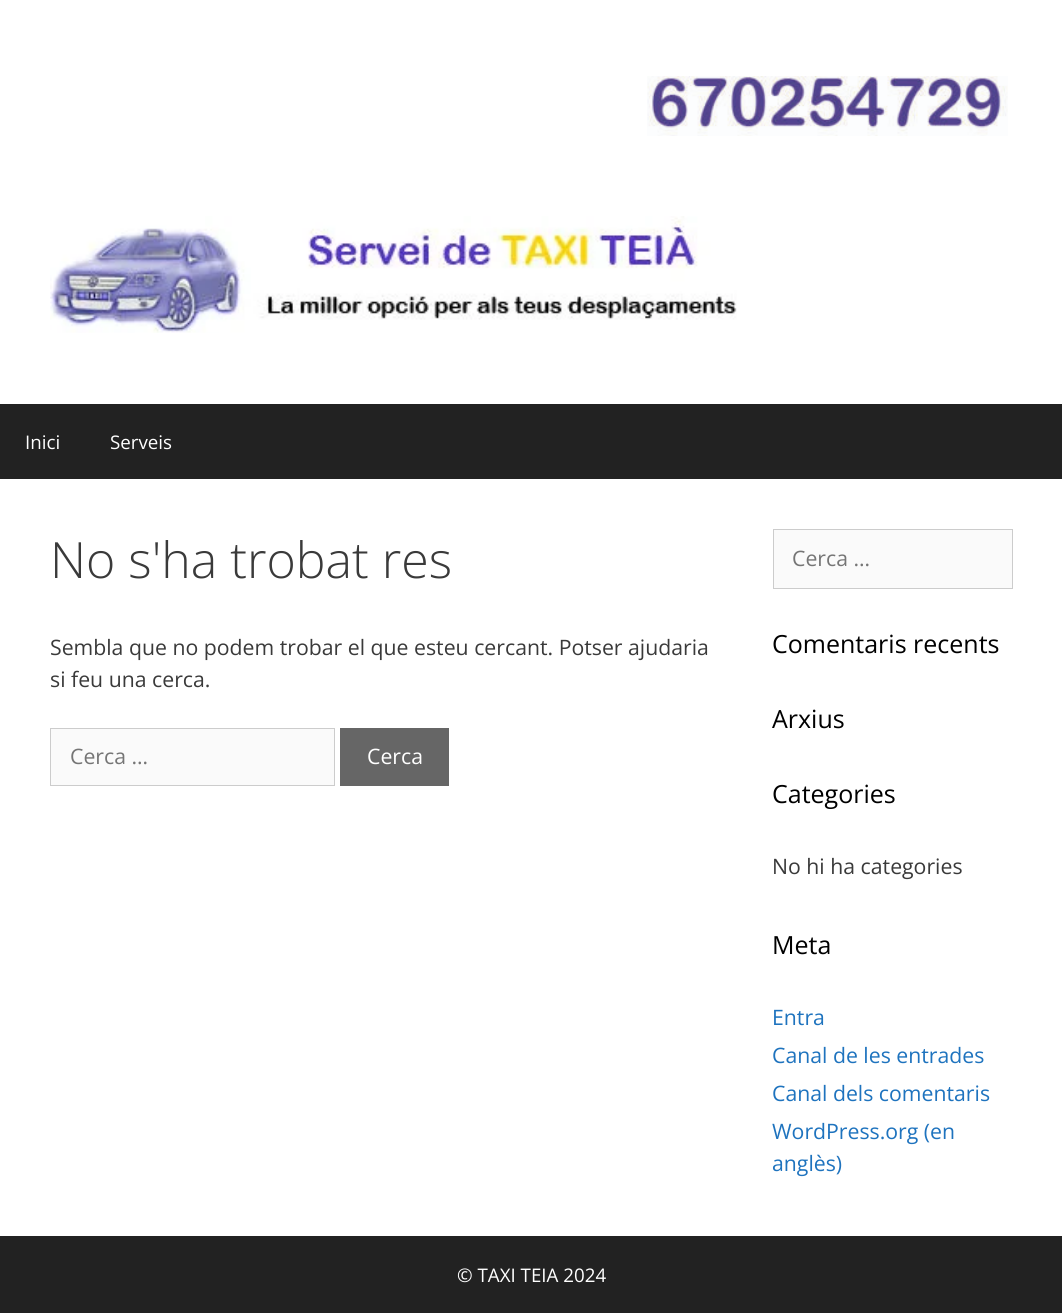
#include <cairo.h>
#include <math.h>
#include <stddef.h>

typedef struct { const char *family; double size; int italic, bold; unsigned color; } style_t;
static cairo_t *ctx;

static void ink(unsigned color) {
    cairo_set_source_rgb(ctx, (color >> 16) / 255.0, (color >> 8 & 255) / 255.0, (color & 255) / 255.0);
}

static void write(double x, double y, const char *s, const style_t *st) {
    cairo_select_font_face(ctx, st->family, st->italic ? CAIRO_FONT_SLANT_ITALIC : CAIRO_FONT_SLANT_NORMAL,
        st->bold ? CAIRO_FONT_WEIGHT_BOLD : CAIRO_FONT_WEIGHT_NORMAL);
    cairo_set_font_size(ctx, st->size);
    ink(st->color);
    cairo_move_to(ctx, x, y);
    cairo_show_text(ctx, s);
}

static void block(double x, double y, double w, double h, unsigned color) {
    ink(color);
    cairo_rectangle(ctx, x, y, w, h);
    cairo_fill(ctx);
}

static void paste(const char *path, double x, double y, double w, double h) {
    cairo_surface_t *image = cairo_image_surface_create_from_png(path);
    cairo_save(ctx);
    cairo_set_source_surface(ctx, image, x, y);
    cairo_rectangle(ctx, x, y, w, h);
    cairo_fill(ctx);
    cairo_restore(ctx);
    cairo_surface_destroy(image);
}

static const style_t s1 = {"Open Sans", 18.75, 0, 0, 0xffffff};
static const style_t s2 = {"Open Sans Light", 50, 0, 0, 0x3a3a3a};
static const style_t s3 = {"Open Sans", 21.25, 0, 0, 0x3a3a3a};
static const style_t s4 = {"Open Sans", 21.25, 0, 0, 0x757575};
static const style_t s5 = {"Open Sans", 21.25, 0, 0, 0xffffff};
static const style_t s6 = {"Open Sans", 25, 0, 0, 0x000000};
static const style_t s7 = {"Open Sans", 21.25, 0, 0, 0x1e73be};

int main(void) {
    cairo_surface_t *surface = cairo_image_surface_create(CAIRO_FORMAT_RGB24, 1062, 1313);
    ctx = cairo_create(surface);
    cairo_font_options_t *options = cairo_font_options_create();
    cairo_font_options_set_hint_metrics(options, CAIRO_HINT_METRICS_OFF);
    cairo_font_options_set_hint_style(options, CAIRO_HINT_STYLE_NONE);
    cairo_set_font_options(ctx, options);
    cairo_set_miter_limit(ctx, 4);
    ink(0x222222);
    cairo_paint(ctx);
    block(0, 0, 1062, 404, 0xffffff);
    paste("pic1.png", 647, 76, 361, 60);
    paste("pic2.png", 50, 216, 687, 117);
    write(25, 449, "Inici", &s1);
    write(110, 449, "Serveis", &s1);
    block(0, 479, 1062, 757, 0xffffff);
    write(50, 578, "No s'ha trobat res", &s2);
    write(50, 655, "Sembla que no podem trobar el que esteu cercant. Potser ajudaria", &s3);
    write(50, 687, "si feu una cerca.", &s3);
    ink(0xfafafa);
    cairo_rectangle(ctx, 50.5, 728.5, 284, 57);
    cairo_fill_preserve(ctx);
    ink(0xcccccc);
    cairo_set_line_width(ctx, 1);
    cairo_stroke(ctx);
    write(70, 764, "Cerca …", &s4);
    block(340, 728, 109, 58, 0x666666);
    write(367, 764, "Cerca", &s5);
    ink(0xfafafa);
    cairo_rectangle(ctx, 773.5, 529.5, 239, 59);
    cairo_fill_preserve(ctx);
    ink(0xcccccc);
    cairo_stroke(ctx);
    write(792, 566, "Cerca …", &s4);
    write(772, 653, "Comentaris recents", &s6);
    write(772, 728, "Arxius", &s6);
    write(772, 803, "Categories", &s6);
    write(772, 874, "No hi ha categories", &s3);
    write(772, 954, "Meta", &s6);
    write(772, 1025, "Entra", &s7);
    write(772, 1063, "Canal de les entrades", &s7);
    write(772, 1101, "Canal dels comentaris", &s7);
    write(772, 1139, "WordPress.org (en", &s7);
    write(772, 1171, "anglès)", &s7);
    write(457, 1282, "© TAXI TEIA 2024", &s1);
    cairo_surface_write_to_png(surface, "screenshot.png");
    cairo_font_options_destroy(options);
    cairo_destroy(ctx);
    cairo_surface_destroy(surface);
    return 0;
}
